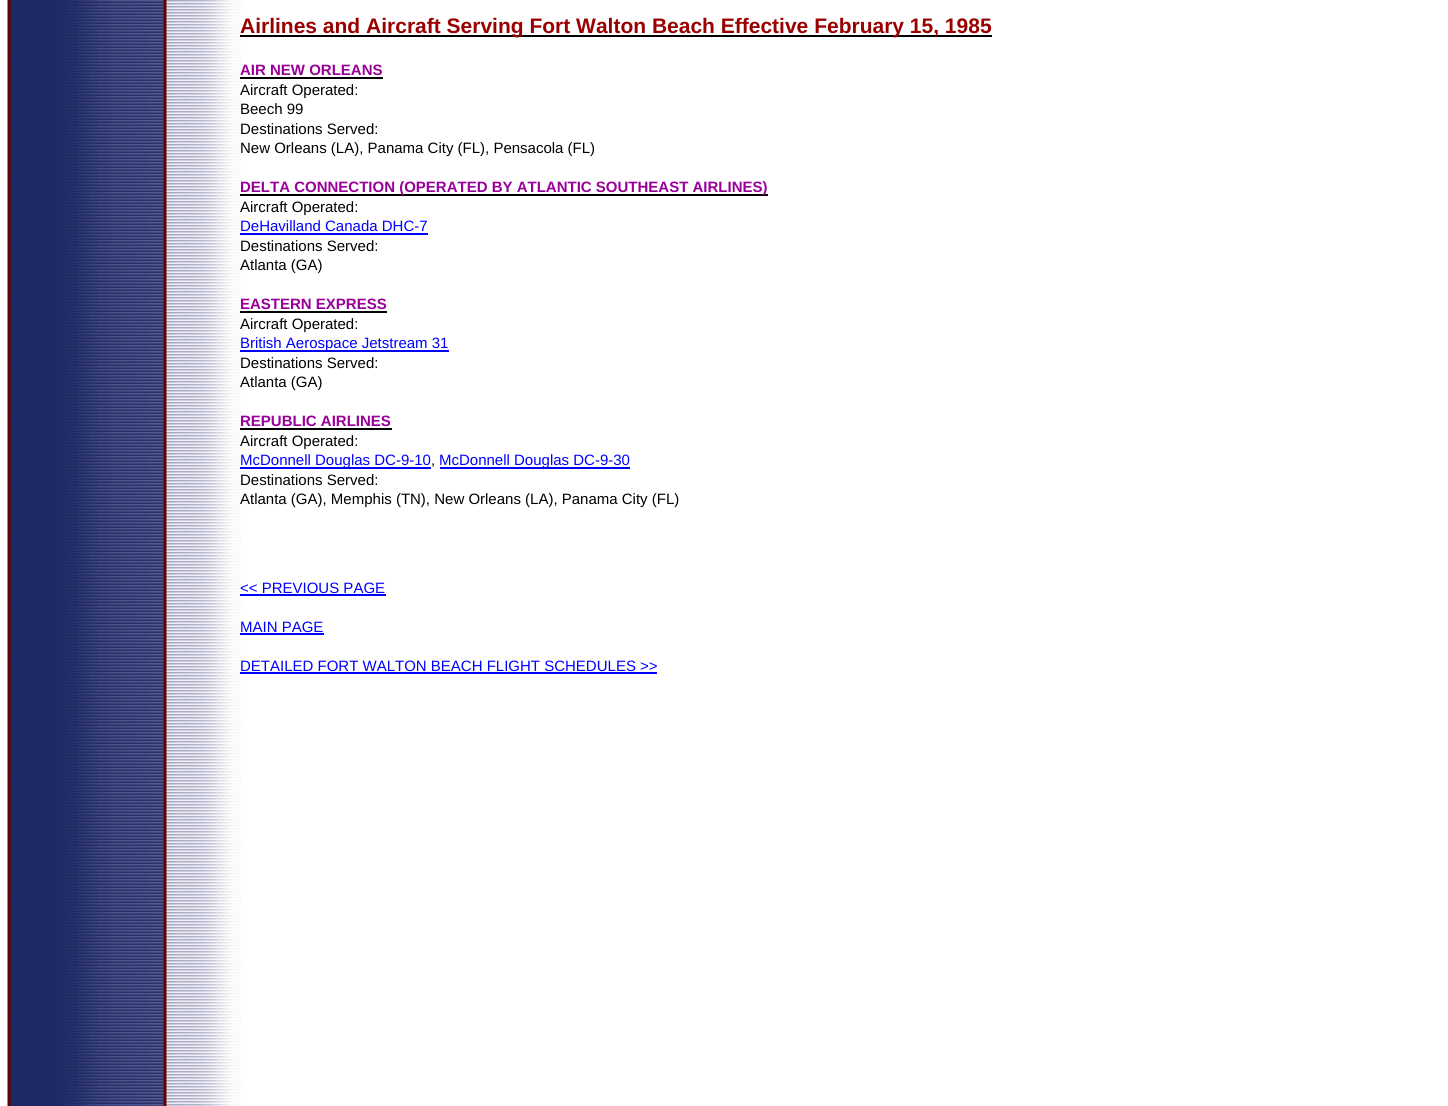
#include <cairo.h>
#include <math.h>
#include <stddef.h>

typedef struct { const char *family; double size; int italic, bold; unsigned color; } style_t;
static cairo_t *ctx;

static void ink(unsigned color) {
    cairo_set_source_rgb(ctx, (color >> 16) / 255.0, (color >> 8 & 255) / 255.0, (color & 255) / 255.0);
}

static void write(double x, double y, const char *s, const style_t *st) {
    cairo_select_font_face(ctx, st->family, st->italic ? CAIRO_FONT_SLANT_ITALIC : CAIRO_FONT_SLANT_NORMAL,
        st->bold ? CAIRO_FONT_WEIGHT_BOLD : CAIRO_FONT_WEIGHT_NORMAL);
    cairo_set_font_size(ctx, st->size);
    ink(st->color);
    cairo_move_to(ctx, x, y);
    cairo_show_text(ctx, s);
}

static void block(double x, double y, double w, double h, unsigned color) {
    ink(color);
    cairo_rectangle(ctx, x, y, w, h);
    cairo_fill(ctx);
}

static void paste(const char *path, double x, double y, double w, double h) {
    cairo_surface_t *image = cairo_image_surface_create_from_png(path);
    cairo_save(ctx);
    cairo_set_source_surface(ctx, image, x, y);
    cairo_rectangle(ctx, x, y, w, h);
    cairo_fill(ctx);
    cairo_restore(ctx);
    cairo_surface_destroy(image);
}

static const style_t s1 = {"Liberation Sans", 21, 0, 1, 0x990000};
static const style_t s2 = {"Liberation Sans", 15, 0, 1, 0x990099};
static const style_t s3 = {"Liberation Sans", 15, 0, 0, 0x000000};
static const style_t s4 = {"Liberation Sans", 15, 0, 0, 0x0000ff};

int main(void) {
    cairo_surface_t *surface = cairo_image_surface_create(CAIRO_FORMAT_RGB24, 1448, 1106);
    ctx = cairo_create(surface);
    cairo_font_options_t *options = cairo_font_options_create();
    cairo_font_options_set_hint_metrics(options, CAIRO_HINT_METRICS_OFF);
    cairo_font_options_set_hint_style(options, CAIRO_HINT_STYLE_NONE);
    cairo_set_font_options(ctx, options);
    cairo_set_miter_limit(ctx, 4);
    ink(0xffffff);
    cairo_paint(ctx);
    paste("pic1.png", 7, 0, 237, 1106);
    block(240, 35, 752, 2, 0x000000);
    write(240, 33, "Airlines and Aircraft Serving Fort Walton Beach Effective February 15, 1985", &s1);
    write(240, 75, "AIR NEW ORLEANS", &s2);
    block(240, 77, 143, 2, 0x000000);
    write(240, 95, "Aircraft Operated:", &s3);
    write(240, 114, "Beech 99", &s3);
    write(240, 134, "Destinations Served:", &s3);
    write(240, 153, "New Orleans (LA), Panama City (FL), Pensacola (FL)", &s3);
    block(240, 194, 528, 2, 0x000000);
    write(240, 192, "DELTA CONNECTION (OPERATED BY ATLANTIC SOUTHEAST AIRLINES)", &s2);
    write(240, 212, "Aircraft Operated:", &s3);
    write(240, 231, "DeHavilland Canada DHC-7", &s4);
    block(240, 233, 188, 2, 0x0000ff);
    write(240, 251, "Destinations Served:", &s3);
    write(240, 270, "Atlanta (GA)", &s3);
    write(240, 309, "EASTERN EXPRESS", &s2);
    block(240, 311, 147, 2, 0x000000);
    write(240, 329, "Aircraft Operated:", &s3);
    block(240, 350, 209, 2, 0x0000ff);
    write(240, 348, "British Aerospace Jetstream 31", &s4);
    write(240, 368, "Destinations Served:", &s3);
    write(240, 387, "Atlanta (GA)", &s3);
    write(240, 426, "REPUBLIC AIRLINES", &s2);
    block(240, 428, 152, 2, 0x000000);
    write(240, 446, "Aircraft Operated:", &s3);
    block(240, 467, 191, 2, 0x0000ff);
    write(240, 465, "McDonnell Douglas DC-9-10", &s4);
    write(431, 465, ",", &s3);
    block(440, 467, 190, 2, 0x0000ff);
    write(439, 465, "McDonnell Douglas DC-9-30", &s4);
    write(240, 485, "Destinations Served:", &s3);
    write(240, 504, "Atlanta (GA), Memphis (TN), New Orleans (LA), Panama City (FL)", &s3);
    write(240, 593, "<< PREVIOUS PAGE", &s4);
    block(240, 594, 146, 2, 0x0000ff);
    write(240, 632, "MAIN PAGE", &s4);
    block(240, 633, 84, 2, 0x0000ff);
    write(240, 671, "DETAILED FORT WALTON BEACH FLIGHT SCHEDULES >>", &s4);
    block(240, 672, 417, 2, 0x0000ff);
    cairo_surface_write_to_png(surface, "screenshot.png");
    cairo_font_options_destroy(options);
    cairo_destroy(ctx);
    cairo_surface_destroy(surface);
    return 0;
}
